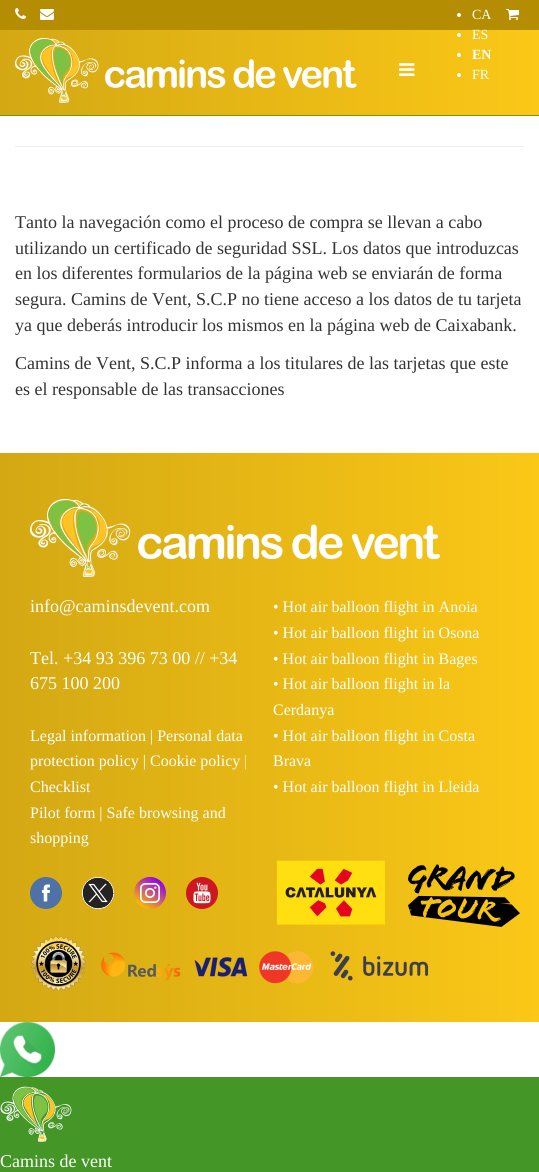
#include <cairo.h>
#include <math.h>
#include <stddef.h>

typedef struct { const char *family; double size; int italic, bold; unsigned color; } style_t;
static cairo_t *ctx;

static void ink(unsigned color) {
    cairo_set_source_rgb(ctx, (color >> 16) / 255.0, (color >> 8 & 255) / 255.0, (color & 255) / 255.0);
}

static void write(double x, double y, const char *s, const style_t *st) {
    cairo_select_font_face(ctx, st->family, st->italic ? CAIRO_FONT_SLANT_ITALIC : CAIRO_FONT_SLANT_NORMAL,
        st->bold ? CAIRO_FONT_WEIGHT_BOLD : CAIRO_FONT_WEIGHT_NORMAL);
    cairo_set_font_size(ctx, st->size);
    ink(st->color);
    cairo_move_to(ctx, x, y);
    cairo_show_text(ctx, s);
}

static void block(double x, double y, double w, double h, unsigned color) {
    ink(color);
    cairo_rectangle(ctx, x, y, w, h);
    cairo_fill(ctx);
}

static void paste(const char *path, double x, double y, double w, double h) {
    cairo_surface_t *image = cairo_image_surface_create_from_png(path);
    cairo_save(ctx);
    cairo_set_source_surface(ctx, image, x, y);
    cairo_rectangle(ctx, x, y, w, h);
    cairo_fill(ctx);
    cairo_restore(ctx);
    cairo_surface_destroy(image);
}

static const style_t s1 = {"Liberation Serif", 14, 0, 0, 0xffffff};
static const style_t s2 = {"Liberation Serif", 14, 0, 1, 0xffffff};
static const style_t s3 = {"Liberation Serif", 18, 0, 0, 0x333333};
static const style_t s4 = {"Liberation Serif", 18, 0, 0, 0xffffff};
static const style_t s5 = {"Liberation Serif", 16, 0, 0, 0xffffff};

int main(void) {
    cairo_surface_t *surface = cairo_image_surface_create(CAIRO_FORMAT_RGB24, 539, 1172);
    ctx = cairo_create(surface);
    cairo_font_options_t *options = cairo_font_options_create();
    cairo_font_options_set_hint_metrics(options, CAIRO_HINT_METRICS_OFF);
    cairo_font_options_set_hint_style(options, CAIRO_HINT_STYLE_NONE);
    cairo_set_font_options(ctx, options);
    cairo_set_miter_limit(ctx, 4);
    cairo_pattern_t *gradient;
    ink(0xffffff);
    cairo_paint(ctx);
    block(0, 115, 539, 1, 0x7b920a);
    gradient = cairo_pattern_create_linear(0, 58, 539, 57);
    cairo_pattern_add_color_stop_rgba(gradient, 0, 0.827, 0.659, 0.075, 1);
    cairo_pattern_add_color_stop_rgba(gradient, 1, 0.984, 0.784, 0.09, 1);
    cairo_set_source(ctx, gradient);
    cairo_pattern_destroy(gradient);
    cairo_rectangle(ctx, 0, 30, 539, 85);
    cairo_fill(ctx);
    paste("pic1.png", 15, 38, 342, 65);
    paste("pic2.png", 399, 63, 16, 13);
    block(0, 0, 539, 30, 0xb58d03);
    paste("pic3.png", 15, 8, 11, 11);
    paste("pic4.png", 40, 9, 14, 11);
    ink(0xffffff);
    cairo_arc(ctx, 459, 15, 2, 0, 2 * M_PI);
    cairo_fill(ctx);
    write(472, 19, "CA", &s1);
    cairo_new_path(ctx);
    cairo_arc(ctx, 459, 35, 2, 0, 2 * M_PI);
    cairo_fill(ctx);
    write(472, 39, "ES", &s1);
    cairo_new_path(ctx);
    cairo_arc(ctx, 459, 55, 2, 0, 2 * M_PI);
    cairo_fill(ctx);
    write(472, 59, "EN", &s2);
    cairo_new_path(ctx);
    cairo_arc(ctx, 459, 75, 2, 0, 2 * M_PI);
    cairo_fill(ctx);
    write(472, 79, "FR", &s1);
    paste("pic5.png", 506, 9, 13, 11);
    block(15, 146, 509, 1, 0xeeeeee);
    write(15, 228, "Tanto la navegación como el proceso de compra se llevan a cabo", &s3);
    write(15, 254, "utilizando un certificado de seguridad SSL. Los datos que introduzcas", &s3);
    write(15, 279, "en los diferentes formularios de la página web se enviarán de forma", &s3);
    write(15, 305, "segura. Camins de Vent, S.C.P no tiene acceso a los datos de tu tarjeta", &s3);
    write(15, 331, "ya que deberás introducir los mismos en la página web de Caixabank.", &s3);
    write(15, 369, "Camins de Vent, S.C.P informa a los titulares de las tarjetas que este", &s3);
    write(15, 395, "es el responsable de las transacciones", &s3);
    gradient = cairo_pattern_create_linear(0, 738, 539, 738);
    cairo_pattern_add_color_stop_rgba(gradient, 0, 0.827, 0.659, 0.075, 1);
    cairo_pattern_add_color_stop_rgba(gradient, 1, 0.984, 0.784, 0.09, 1);
    cairo_set_source(ctx, gradient);
    cairo_pattern_destroy(gradient);
    cairo_rectangle(ctx, 0, 453, 539, 569);
    cairo_fill(ctx);
    paste("pic6.png", 30, 499, 410, 78);
    write(30, 612, "info@caminsdevent.com", &s4);
    write(30, 664, "Tel. +34 93 396 73 00 // +34", &s4);
    write(30, 689, "675 100 200", &s4);
    write(30, 741, "Legal information | Personal data", &s5);
    write(30, 766, "protection policy | Cookie policy |", &s5);
    write(30, 792, "Checklist", &s5);
    write(30, 818, "Pilot form | Safe browsing and", &s5);
    write(30, 843, "shopping", &s5);
    paste("pic7.png", 30, 877, 32, 32);
    paste("pic8.png", 82, 877, 32, 32);
    paste("pic9.png", 134, 877, 32, 32);
    paste("pic10.png", 186, 877, 32, 32);
    paste("pic11.png", 31, 935, 398, 56);
    write(273, 612, "• Hot air balloon flight in Anoia", &s5);
    write(273, 638, "• Hot air balloon flight in Osona", &s5);
    write(273, 664, "• Hot air balloon flight in Bages", &s5);
    write(273, 689, "• Hot air balloon flight in la", &s5);
    write(273, 715, "Cerdanya", &s5);
    write(273, 741, "• Hot air balloon flight in Costa", &s5);
    write(273, 766, "Brava", &s5);
    write(273, 792, "• Hot air balloon flight in Lleida", &s5);
    paste("pic12.png", 276, 860, 244, 67);
    paste("pic13.png", 0, 1022, 55, 55);
    block(0, 1077, 539, 95, 0x449626);
    paste("pic14.png", 0, 1086, 72, 56);
    write(0, 1167, "Camins de vent", &s4);
    cairo_surface_write_to_png(surface, "screenshot.png");
    cairo_font_options_destroy(options);
    cairo_destroy(ctx);
    cairo_surface_destroy(surface);
    return 0;
}
